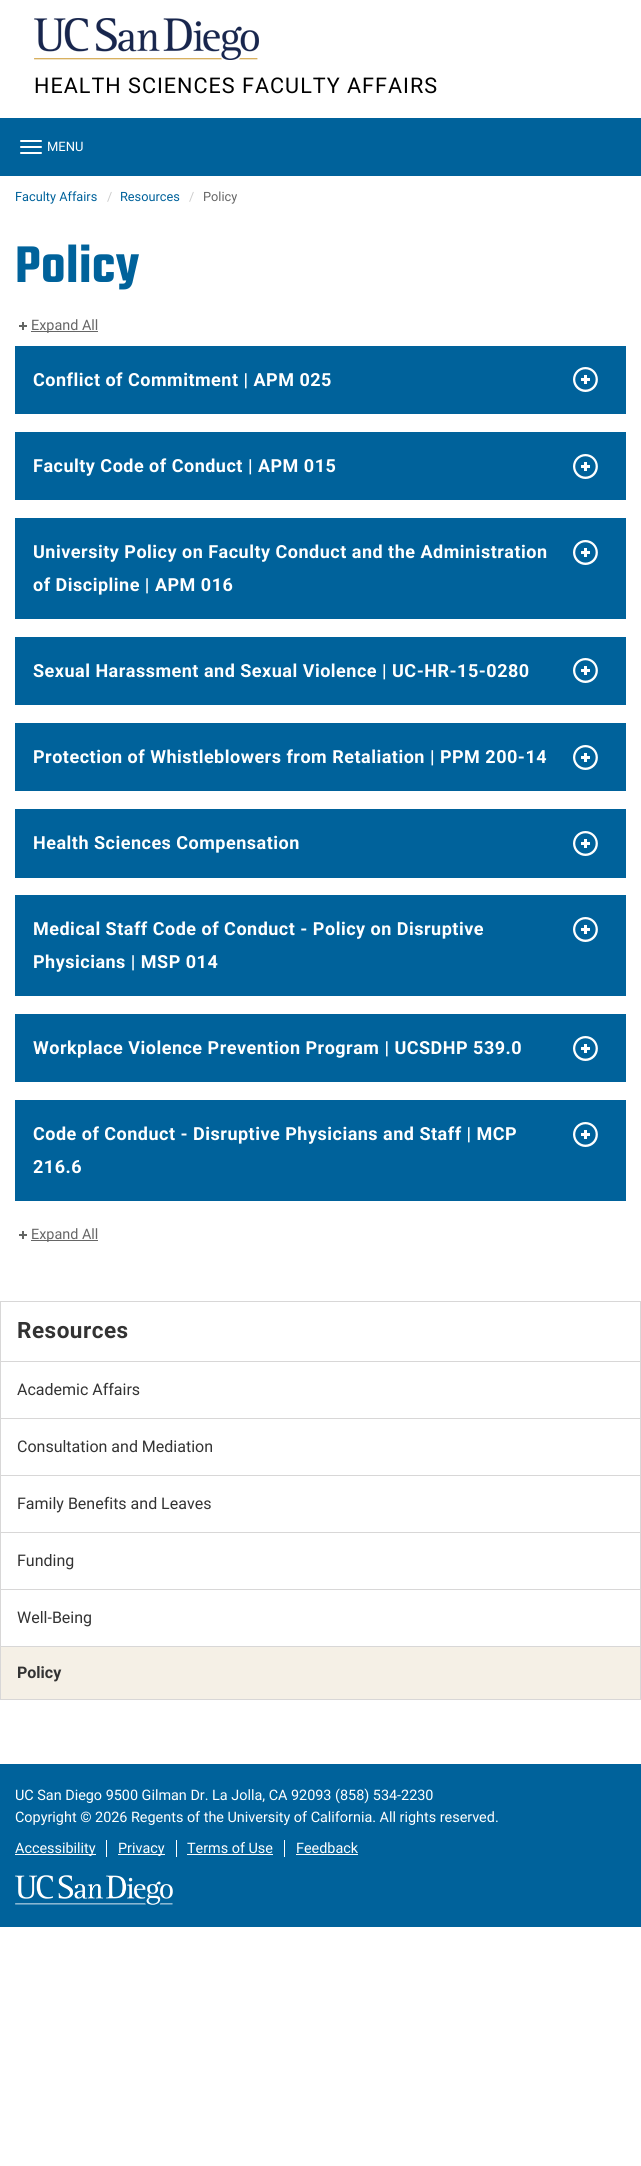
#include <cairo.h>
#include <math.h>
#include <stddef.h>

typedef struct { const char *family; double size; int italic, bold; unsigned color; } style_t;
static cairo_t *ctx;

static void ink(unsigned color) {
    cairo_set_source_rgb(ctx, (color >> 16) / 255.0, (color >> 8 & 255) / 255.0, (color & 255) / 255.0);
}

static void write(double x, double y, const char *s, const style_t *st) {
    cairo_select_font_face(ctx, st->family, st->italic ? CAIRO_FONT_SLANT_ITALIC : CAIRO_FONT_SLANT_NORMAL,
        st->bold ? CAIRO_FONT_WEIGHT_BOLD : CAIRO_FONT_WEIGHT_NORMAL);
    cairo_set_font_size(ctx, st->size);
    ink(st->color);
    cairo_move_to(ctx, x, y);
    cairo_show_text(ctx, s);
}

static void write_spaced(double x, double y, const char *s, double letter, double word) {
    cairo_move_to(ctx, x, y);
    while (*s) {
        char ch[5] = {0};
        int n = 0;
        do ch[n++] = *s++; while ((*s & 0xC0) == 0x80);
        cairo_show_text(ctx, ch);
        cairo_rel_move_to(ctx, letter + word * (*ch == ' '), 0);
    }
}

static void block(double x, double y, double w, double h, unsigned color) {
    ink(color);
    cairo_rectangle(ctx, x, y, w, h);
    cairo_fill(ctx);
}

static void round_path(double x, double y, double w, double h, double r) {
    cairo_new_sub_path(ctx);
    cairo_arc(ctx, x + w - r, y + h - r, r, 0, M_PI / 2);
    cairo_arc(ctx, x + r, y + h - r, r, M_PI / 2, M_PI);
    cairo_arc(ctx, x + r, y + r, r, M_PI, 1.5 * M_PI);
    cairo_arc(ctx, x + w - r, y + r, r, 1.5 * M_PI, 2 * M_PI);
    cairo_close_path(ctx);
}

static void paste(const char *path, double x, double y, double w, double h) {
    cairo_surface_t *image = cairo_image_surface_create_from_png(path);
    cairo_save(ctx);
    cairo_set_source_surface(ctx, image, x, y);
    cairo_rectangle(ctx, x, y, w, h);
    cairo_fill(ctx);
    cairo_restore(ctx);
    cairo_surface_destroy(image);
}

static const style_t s1 = {"Roboto", 13, 0, 0, 0xffffff};
static const style_t s2 = {"Roboto", 12.75, 0, 0, 0x00629b};
static const style_t s3 = {"Roboto", 12.75, 0, 0, 0xcccccc};
static const style_t s4 = {"Roboto", 12.75, 0, 0, 0x666666};
static const style_t s5 = {"Roboto", 14.4, 0, 0, 0x666666};
static const style_t s6 = {"Roboto", 16, 0, 0, 0x333333};
static const style_t s7 = {"Roboto", 16, 0, 1, 0x333333};
static const style_t s8 = {"Roboto", 14.4, 0, 0, 0xffffff};

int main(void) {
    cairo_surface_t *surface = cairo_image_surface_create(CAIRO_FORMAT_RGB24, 641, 2166);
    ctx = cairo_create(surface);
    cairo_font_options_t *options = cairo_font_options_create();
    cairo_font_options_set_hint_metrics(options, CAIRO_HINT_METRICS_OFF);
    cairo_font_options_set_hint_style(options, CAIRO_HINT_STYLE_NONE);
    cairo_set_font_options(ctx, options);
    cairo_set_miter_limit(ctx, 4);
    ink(0xffffff);
    cairo_paint(ctx);
    paste("pic1.png", 34, 18, 225, 42);
    cairo_select_font_face(ctx, "Roboto", CAIRO_FONT_SLANT_NORMAL, CAIRO_FONT_WEIGHT_NORMAL);
    cairo_set_font_size(ctx, 21.6);
    ink(0x000000);
    write_spaced(34, 93, "HEALTH SCIENCES FACULTY AFFAIRS", 1, 0);
    block(0, 118, 641, 58, 0x00629b);
    ink(0xffffff);
    round_path(20, 140, 22, 2, 1);
    cairo_fill(ctx);
    round_path(20, 146, 22, 2, 1);
    cairo_fill(ctx);
    round_path(20, 152, 22, 2, 1);
    cairo_fill(ctx);
    write(47, 151, "MENU", &s1);
    write(15, 201, "Faculty Affairs", &s2);
    write(107, 201, "/", &s3);
    write(120, 201, "Resources", &s2);
    write(189, 201, "/", &s3);
    write(203, 201, "Policy", &s4);
    cairo_select_font_face(ctx, "Teko SemiBold", CAIRO_FONT_SLANT_NORMAL, CAIRO_FONT_WEIGHT_NORMAL);
    cairo_set_font_size(ctx, 56);
    ink(0x00629b);
    write_spaced(15, 282, "Policy", 0.5, 0);
    paste("pic2.png", 19, 322, 8, 8);
    block(31, 331, 67, 1, 0x666666);
    write(31, 330, "Expand All", &s5);
    block(15, 346, 611, 68, 0x00629b);
    cairo_select_font_face(ctx, "Roboto", CAIRO_FONT_SLANT_NORMAL, CAIRO_FONT_WEIGHT_BOLD);
    cairo_set_font_size(ctx, 18);
    ink(0xffffff);
    write_spaced(33, 386, "Conflict of Commitment | APM 025", 0.5, 0);
    paste("pic3.png", 573, 367, 25, 25);
    block(15, 432, 611, 68, 0x00629b);
    ink(0xffffff);
    write_spaced(33, 472, "Faculty Code of Conduct | APM 015", 0.5, 0);
    paste("pic3.png", 573, 454, 25, 25);
    block(15, 518, 611, 101, 0x00629b);
    ink(0xffffff);
    write_spaced(33, 558, "University Policy on Faculty Conduct and the Administration", 0.5, 0);
    write_spaced(33, 591, "of Discipline | APM 016", 0.5, 0);
    paste("pic3.png", 573, 540, 25, 25);
    block(15, 637, 611, 68, 0x00629b);
    ink(0xffffff);
    write_spaced(33, 677, "Sexual Harassment and Sexual Violence | UC-HR-15-0280", 0.5, 0);
    paste("pic3.png", 573, 658, 25, 25);
    block(15, 723, 611, 68, 0x00629b);
    ink(0xffffff);
    write_spaced(33, 763, "Protection of Whistleblowers from Retaliation | PPM 200-14", 0.5, 0);
    paste("pic3.png", 573, 745, 25, 25);
    block(15, 809, 611, 69, 0x00629b);
    ink(0xffffff);
    write_spaced(33, 849, "Health Sciences Compensation", 0.5, 0);
    paste("pic3.png", 573, 831, 25, 25);
    block(15, 895, 611, 101, 0x00629b);
    ink(0xffffff);
    write_spaced(33, 935, "Medical Staff Code of Conduct - Policy on Disruptive", 0.5, 0);
    write_spaced(33, 968, "Physicians | MSP 014", 0.5, 0);
    paste("pic3.png", 573, 917, 25, 25);
    block(15, 1014, 611, 68, 0x00629b);
    ink(0xffffff);
    write_spaced(33, 1054, "Workplace Violence Prevention Program | UCSDHP 539.0", 0.5, 0);
    paste("pic3.png", 573, 1036, 25, 25);
    block(15, 1100, 611, 101, 0x00629b);
    ink(0xffffff);
    write_spaced(33, 1140, "Code of Conduct - Disruptive Physicians and Staff | MCP", 0.5, 0);
    write_spaced(33, 1173, "216.6", 0.5, 0);
    paste("pic3.png", 573, 1122, 25, 25);
    paste("pic2.png", 19, 1231, 8, 8);
    block(31, 1240, 67, 1, 0x666666);
    write(31, 1239, "Expand All", &s5);
    cairo_rectangle(ctx, 0.5, 1301.5, 640, 398);
    ink(0xd8d7d7);
    cairo_set_line_width(ctx, 1);
    cairo_stroke(ctx);
    cairo_select_font_face(ctx, "Roboto", CAIRO_FONT_SLANT_NORMAL, CAIRO_FONT_WEIGHT_BOLD);
    cairo_set_font_size(ctx, 22.5);
    ink(0x333333);
    write_spaced(17, 1338, "Resources", 0.5, 0);
    block(1, 1361, 639, 1, 0xd8d7d7);
    write(17, 1395, "Academic Affairs", &s6);
    block(1, 1418, 639, 1, 0xd8d7d7);
    write(17, 1452, "Consultation and Mediation", &s6);
    block(1, 1475, 639, 1, 0xd8d7d7);
    write(17, 1509, "Family Benefits and Leaves", &s6);
    block(1, 1532, 639, 1, 0xd8d7d7);
    write(17, 1566, "Funding", &s6);
    block(1, 1589, 639, 1, 0xd8d7d7);
    write(17, 1623, "Well-Being", &s6);
    block(1, 1647, 639, 52, 0xf5f0e6);
    block(1, 1646, 639, 1, 0xd8d7d7);
    write(17, 1678, "Policy", &s7);
    block(0, 1764, 641, 163, 0x00629b);
    write(15, 1800, "UC San Diego 9500 Gilman Dr. La Jolla, CA 92093 (858) 534-2230", &s8);
    write(15, 1822, "Copyright © 2026 Regents of the University of California. All rights reserved.", &s8);
    block(15, 1854, 81, 1, 0xffffff);
    write(15, 1853, "Accessibility", &s8);
    block(106, 1840, 1, 17, 0xffffff);
    block(118, 1854, 47, 1, 0xffffff);
    write(118, 1853, "Privacy", &s8);
    block(176, 1840, 1, 17, 0xffffff);
    write(187, 1853, "Terms of Use", &s8);
    block(284, 1840, 1, 17, 0xffffff);
    block(187, 1854, 86, 1, 0xffffff);
    write(296, 1853, "Feedback", &s8);
    block(296, 1854, 62, 1, 0xffffff);
    paste("pic4.png", 15, 1875, 158, 30);
    cairo_surface_write_to_png(surface, "screenshot.png");
    cairo_font_options_destroy(options);
    cairo_destroy(ctx);
    cairo_surface_destroy(surface);
    return 0;
}
